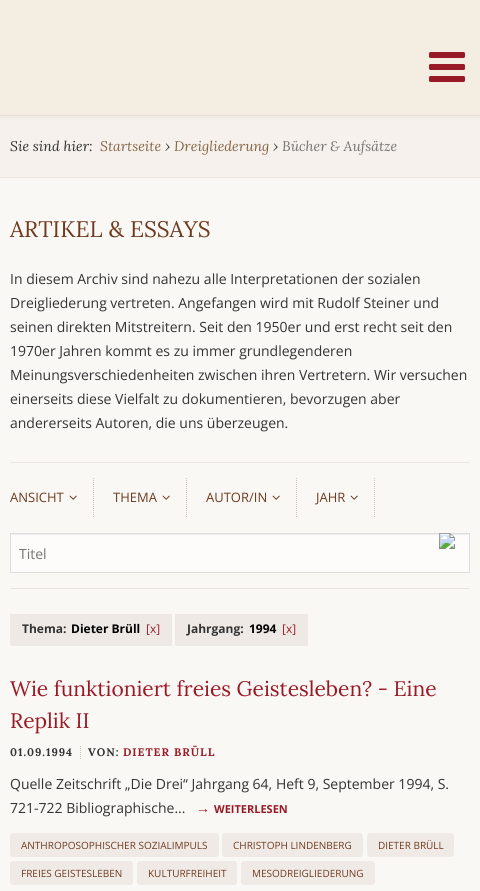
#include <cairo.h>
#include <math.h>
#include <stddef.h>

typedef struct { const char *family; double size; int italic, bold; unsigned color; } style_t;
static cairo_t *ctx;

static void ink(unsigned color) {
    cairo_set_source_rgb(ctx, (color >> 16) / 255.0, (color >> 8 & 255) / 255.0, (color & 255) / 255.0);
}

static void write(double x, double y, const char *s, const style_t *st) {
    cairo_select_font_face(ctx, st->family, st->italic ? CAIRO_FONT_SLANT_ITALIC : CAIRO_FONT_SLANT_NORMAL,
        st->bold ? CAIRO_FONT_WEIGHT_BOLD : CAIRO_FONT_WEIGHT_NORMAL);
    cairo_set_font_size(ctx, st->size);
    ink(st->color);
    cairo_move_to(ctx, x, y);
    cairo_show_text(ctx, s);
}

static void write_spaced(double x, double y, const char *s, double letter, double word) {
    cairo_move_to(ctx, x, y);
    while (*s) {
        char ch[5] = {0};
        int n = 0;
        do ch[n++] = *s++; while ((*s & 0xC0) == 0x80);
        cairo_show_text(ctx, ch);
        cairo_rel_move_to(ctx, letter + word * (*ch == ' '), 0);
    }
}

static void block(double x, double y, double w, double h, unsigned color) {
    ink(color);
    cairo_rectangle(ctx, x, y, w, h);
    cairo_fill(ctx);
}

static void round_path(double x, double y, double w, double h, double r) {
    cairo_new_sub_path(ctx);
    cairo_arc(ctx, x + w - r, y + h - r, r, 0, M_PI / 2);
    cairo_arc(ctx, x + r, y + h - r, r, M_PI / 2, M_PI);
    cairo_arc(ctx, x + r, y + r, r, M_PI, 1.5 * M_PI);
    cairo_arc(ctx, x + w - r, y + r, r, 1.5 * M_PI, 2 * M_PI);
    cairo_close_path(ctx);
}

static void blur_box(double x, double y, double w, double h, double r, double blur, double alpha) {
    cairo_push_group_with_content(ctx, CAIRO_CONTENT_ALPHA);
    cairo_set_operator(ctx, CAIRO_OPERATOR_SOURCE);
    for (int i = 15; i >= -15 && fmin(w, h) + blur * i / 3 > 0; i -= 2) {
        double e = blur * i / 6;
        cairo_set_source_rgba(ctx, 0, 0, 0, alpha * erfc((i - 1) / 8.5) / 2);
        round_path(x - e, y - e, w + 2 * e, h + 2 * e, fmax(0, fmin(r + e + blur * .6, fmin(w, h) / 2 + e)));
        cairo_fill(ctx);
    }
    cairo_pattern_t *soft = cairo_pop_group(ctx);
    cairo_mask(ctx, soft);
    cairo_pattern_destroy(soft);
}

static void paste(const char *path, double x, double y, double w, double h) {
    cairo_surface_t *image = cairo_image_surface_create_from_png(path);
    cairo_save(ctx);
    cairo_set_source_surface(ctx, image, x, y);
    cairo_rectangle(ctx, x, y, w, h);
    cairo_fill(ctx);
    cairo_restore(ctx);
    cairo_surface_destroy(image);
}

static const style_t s1 = {"Lora", 14, 1, 0, 0x333333};
static const style_t s2 = {"Lora", 14, 1, 0, 0x856748};
static const style_t s3 = {"Lora", 14, 1, 0, 0x757575};
static const style_t s4 = {"Lora", 22.5, 0, 0, 0x6e3b20};
static const style_t s5 = {"Open Sans", 14, 0, 0, 0x333333};
static const style_t s6 = {"Open Sans", 13, 0, 0, 0x6e3b20};
static const style_t s7 = {"Open Sans", 14, 0, 0, 0x757575};
static const style_t s8 = {"Open Sans", 12, 0, 1, 0x333333};
static const style_t s9 = {"Open Sans", 12, 0, 1, 0x000000};
static const style_t s10 = {"Open Sans", 12, 0, 0, 0x991a27};
static const style_t s11 = {"Lora", 21, 0, 0, 0x991a27};
static const style_t s12 = {"Liberation Sans", 14, 0, 0, 0x991a27};
static const style_t s13 = {"Open Sans", 11, 0, 1, 0x991a27};
static const style_t s14 = {"Open Sans", 10, 0, 0, 0x6e3b20};

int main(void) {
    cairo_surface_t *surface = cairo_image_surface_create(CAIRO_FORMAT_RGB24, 480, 891);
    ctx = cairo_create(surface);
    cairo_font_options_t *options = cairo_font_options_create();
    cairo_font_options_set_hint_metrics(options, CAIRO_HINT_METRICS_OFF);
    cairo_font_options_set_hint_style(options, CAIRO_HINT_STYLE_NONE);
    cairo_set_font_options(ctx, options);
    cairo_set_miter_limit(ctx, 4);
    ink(0xfaf8f5);
    cairo_paint(ctx);
    block(0, 116, 480, 61, 0xf6f1ec);
    block(0, 115, 480, 1, 0xebe6df);
    ink(0x000000);
    blur_box(0, 0, 480, 115, 0, 3.5, 0.08);
    block(0, 0, 480, 115, 0xf4ede1);
    paste("pic1.png", 429, 52, 36, 30);
    block(0, 177, 480, 1, 0xebe6df);
    write(10, 151, "Sie sind hier:", &s1);
    write(100, 151, "Startseite", &s2);
    write(165, 151, "›", &s1);
    write(174, 151, "Dreigliederung", &s2);
    write(273, 151, "›", &s1);
    write(282, 151, "Bücher & Aufsätze", &s3);
    write(10, 237, "ARTIKEL & ESSAYS", &s4);
    write(10, 284, "In diesem Archiv sind nahezu alle Interpretationen der sozialen", &s5);
    write(10, 308, "Dreigliederung vertreten. Angefangen wird mit Rudolf Steiner und", &s5);
    write(10, 332, "seinen direkten Mitstreitern. Seit den 1950er und erst recht seit den", &s5);
    write(10, 356, "1970er Jahren kommt es zu immer grundlegenderen", &s5);
    write(10, 380, "Meinungsverschiedenheiten zwischen ihren Vertretern. Wir versuchen", &s5);
    write(10, 404, "einerseits diese Vielfalt zu dokumentieren, bevorzugen aber", &s5);
    write(10, 428, "andererseits Autoren, die uns überzeugen.", &s5);
    block(10, 462, 460, 1, 0xebe5e1);
    block(10, 588, 460, 1, 0xebe5e1);
    cairo_new_path(ctx);
    cairo_move_to(ctx, 93.5, 478);
    cairo_line_to(ctx, 93.5, 518);
    ink(0xd1c6b8);
    cairo_set_line_width(ctx, 1);
    cairo_set_dash(ctx, (double[]){1, 1}, 2, 0);
    cairo_stroke(ctx);
    write(10, 502, "ANSICHT", &s6);
    paste("pic2.png", 69, 495, 8, 5);
    cairo_new_path(ctx);
    cairo_move_to(ctx, 186.5, 478);
    cairo_line_to(ctx, 186.5, 518);
    ink(0xd1c6b8);
    cairo_stroke(ctx);
    write(113, 502, "THEMA", &s6);
    paste("pic2.png", 162, 495, 8, 5);
    cairo_new_path(ctx);
    cairo_move_to(ctx, 296.5, 478);
    cairo_line_to(ctx, 296.5, 518);
    ink(0xd1c6b8);
    cairo_stroke(ctx);
    write(206, 502, "AUTOR/IN", &s6);
    paste("pic2.png", 272, 495, 8, 5);
    cairo_new_path(ctx);
    cairo_move_to(ctx, 374.5, 478);
    cairo_line_to(ctx, 374.5, 518);
    ink(0xd1c6b8);
    cairo_stroke(ctx);
    write(316, 502, "JAHR", &s6);
    paste("pic2.png", 350, 495, 8, 5);
    block(11, 535, 458, 37, 0xfdfcfa);
    block(11, 534, 458, 1, 0xeeeeee);
    cairo_rectangle(ctx, 10.5, 533.5, 459, 39);
    ink(0xdddddd);
    cairo_set_dash(ctx, NULL, 0, 0);
    cairo_stroke(ctx);
    paste("pic3.png", 439, 533, 16, 16);
    write(19, 559, "Titel", &s7);
    block(10, 614, 162, 32, 0xeee9e5);
    write(22, 633, "Thema:", &s8);
    write(71, 633, "Dieter Brüll", &s9);
    write(146, 633, "[x]", &s10);
    block(175, 614, 133, 32, 0xeee9e5);
    write(187, 633, "Jahrgang:", &s8);
    write(249, 633, "1994", &s9);
    write(282, 633, "[x]", &s10);
    write(10, 696, "Wie funktioniert freies Geistesleben? - Eine", &s11);
    write(10, 728, "Replik II", &s11);
    cairo_new_path(ctx);
    cairo_move_to(ctx, 80.5, 746);
    cairo_line_to(ctx, 80.5, 760);
    ink(0xd1c6b8);
    cairo_set_dash(ctx, (double[]){1, 1}, 2, 0);
    cairo_stroke(ctx);
    cairo_select_font_face(ctx, "Lora", CAIRO_FONT_SLANT_NORMAL, CAIRO_FONT_WEIGHT_BOLD);
    cairo_set_font_size(ctx, 11);
    ink(0x333333);
    write_spaced(10, 756, "01.09.1994", 1, 0);
    write_spaced(88, 756, "VON:", 1, 0);
    ink(0x991a27);
    write_spaced(123, 756, "DIETER BRÜLL", 1, 0);
    write(10, 789, "Quelle Zeitschrift „Die Drei“ Jahrgang 64, Heft 9, September 1994, S.", &s5);
    write(10, 813, "721-722 Bibliographische...", &s5);
    write(196, 813, "→", &s12);
    write(214, 813, "WEITERLESEN", &s13);
    ink(0xf0eae6);
    round_path(10, 833, 209, 24, 3);
    cairo_fill(ctx);
    write(21, 849, "ANTHROPOSOPHISCHER SOZIALIMPULS", &s14);
    ink(0xf0eae6);
    round_path(222, 833, 141, 24, 3);
    cairo_fill(ctx);
    write(233, 849, "CHRISTOPH LINDENBERG", &s14);
    ink(0xf0eae6);
    round_path(367, 833, 87, 24, 3);
    cairo_fill(ctx);
    write(378, 849, "DIETER BRÜLL", &s14);
    ink(0xf0eae6);
    round_path(10, 861, 123, 24, 3);
    cairo_fill(ctx);
    write(21, 877, "FREIES GEISTESLEBEN", &s14);
    ink(0xf0eae6);
    round_path(137, 861, 100, 24, 3);
    cairo_fill(ctx);
    write(148, 877, "KULTURFREIHEIT", &s14);
    ink(0xf0eae6);
    round_path(241, 861, 134, 24, 3);
    cairo_fill(ctx);
    write(252, 877, "MESODREIGLIEDERUNG", &s14);
    cairo_surface_write_to_png(surface, "screenshot.png");
    cairo_font_options_destroy(options);
    cairo_destroy(ctx);
    cairo_surface_destroy(surface);
    return 0;
}
